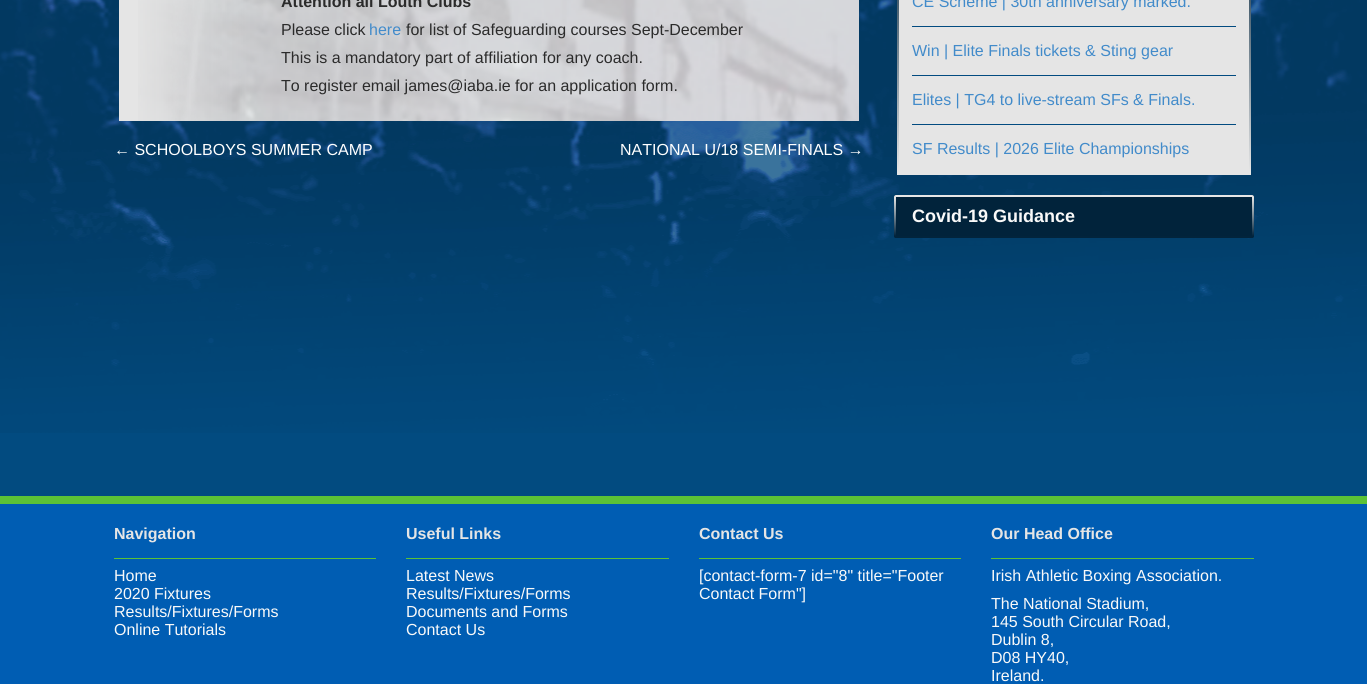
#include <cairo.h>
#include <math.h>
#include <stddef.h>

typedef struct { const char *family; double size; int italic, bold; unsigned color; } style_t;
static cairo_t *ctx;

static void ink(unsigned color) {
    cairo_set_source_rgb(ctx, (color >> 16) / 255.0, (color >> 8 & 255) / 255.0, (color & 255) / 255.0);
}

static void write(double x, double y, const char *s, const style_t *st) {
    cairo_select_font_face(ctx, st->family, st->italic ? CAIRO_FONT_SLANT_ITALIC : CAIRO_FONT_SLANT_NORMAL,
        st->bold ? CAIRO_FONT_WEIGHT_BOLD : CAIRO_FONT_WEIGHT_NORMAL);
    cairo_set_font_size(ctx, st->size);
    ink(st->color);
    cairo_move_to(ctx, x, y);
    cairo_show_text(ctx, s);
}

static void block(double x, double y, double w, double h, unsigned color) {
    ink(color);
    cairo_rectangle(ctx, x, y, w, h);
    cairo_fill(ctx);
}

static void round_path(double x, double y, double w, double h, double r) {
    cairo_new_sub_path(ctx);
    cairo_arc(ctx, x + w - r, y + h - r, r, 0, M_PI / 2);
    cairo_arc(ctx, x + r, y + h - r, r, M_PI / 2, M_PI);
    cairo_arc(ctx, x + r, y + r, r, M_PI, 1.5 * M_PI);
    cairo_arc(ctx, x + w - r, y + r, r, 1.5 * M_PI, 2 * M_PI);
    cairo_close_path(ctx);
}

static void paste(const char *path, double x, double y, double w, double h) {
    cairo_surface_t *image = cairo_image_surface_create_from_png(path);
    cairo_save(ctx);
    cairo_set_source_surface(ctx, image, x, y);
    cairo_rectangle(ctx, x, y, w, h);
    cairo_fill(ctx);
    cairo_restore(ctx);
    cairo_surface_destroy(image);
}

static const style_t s1 = {"Liberation Sans", 16, 0, 1, 0x2b2b2b};
static const style_t s2 = {"Liberation Sans", 16, 0, 0, 0x2b2b2b};
static const style_t s3 = {"Liberation Sans", 16, 0, 0, 0x428bca};
static const style_t s4 = {"Liberation Sans", 16, 0, 0, 0xffffff};
static const style_t s5 = {"Liberation Sans", 18, 0, 1, 0xf9f9f9};
static const style_t s6 = {"Liberation Sans", 16, 0, 1, 0xe5e5e5};
static const style_t s7 = {"Liberation Sans", 16, 0, 0, 0xf9f9f9};

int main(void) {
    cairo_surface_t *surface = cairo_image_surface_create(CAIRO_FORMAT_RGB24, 1367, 684);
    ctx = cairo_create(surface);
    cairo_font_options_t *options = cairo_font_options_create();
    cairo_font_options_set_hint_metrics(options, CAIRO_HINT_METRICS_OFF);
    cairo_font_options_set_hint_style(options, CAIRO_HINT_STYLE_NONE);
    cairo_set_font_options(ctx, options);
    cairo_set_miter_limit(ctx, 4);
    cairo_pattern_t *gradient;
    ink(0x024b80);
    cairo_paint(ctx);
    paste("pic1.png", 0, 0, 1367, 433);
    block(119, 0, 740, 121, 0xe5e5e5);
    paste("pic2.png", 138, 0, 721, 121);
    write(281, 7, "Attention all Louth Clubs", &s1);
    write(281, 35, "Please click", &s2);
    write(369, 35, "here", &s3);
    write(406, 35, "for list of Safeguarding courses Sept-December", &s2);
    write(281, 63, "This is a mandatory part of affiliation for any coach.", &s2);
    write(281, 91, "To register email james@iaba.ie for an application form.", &s2);
    write(114, 155, "← SCHOOLBOYS SUMMER CAMP", &s4);
    write(620, 155, "NATIONAL U/18 SEMI-FINALS →", &s4);
    block(897, 0, 354, 175, 0xe5e5e5);
    gradient = cairo_pattern_create_linear(1250, -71, 1250, 173);
    cairo_pattern_add_color_stop_rgba(gradient, 0, 0.008, 0.141, 0.235, 1);
    cairo_pattern_add_color_stop_rgba(gradient, 1, 0.902, 0.902, 0.902, 1);
    cairo_set_source(ctx, gradient);
    cairo_pattern_destroy(gradient);
    cairo_rectangle(ctx, 1249, 0, 2, 173);
    cairo_fill(ctx);
    gradient = cairo_pattern_create_linear(898, -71, 898, 173);
    cairo_pattern_add_color_stop_rgba(gradient, 0, 0.008, 0.141, 0.235, 1);
    cairo_pattern_add_color_stop_rgba(gradient, 1, 0.902, 0.902, 0.902, 1);
    cairo_set_source(ctx, gradient);
    cairo_pattern_destroy(gradient);
    cairo_rectangle(ctx, 897, 0, 2, 173);
    cairo_fill(ctx);
    block(912, 26, 324, 1, 0x024b80);
    write(912, 7, "CE Scheme | 30th anniversary marked.", &s3);
    block(912, 75, 324, 1, 0x024b80);
    write(912, 56, "Win | Elite Finals tickets & Sting gear", &s3);
    block(912, 124, 324, 1, 0x024b80);
    write(912, 105, "Elites | TG4 to live-stream SFs & Finals.", &s3);
    write(912, 154, "SF Results | 2026 Elite Championships", &s3);
    ink(0x01233b);
    round_path(894, 195, 360, 43, 2);
    cairo_fill(ctx);
    gradient = cairo_pattern_create_linear(1253, 197, 1253, 236);
    cairo_pattern_add_color_stop_rgba(gradient, 0, 0.902, 0.902, 0.902, 1);
    cairo_pattern_add_color_stop_rgba(gradient, 1, 0.008, 0.141, 0.235, 1);
    cairo_set_source(ctx, gradient);
    cairo_pattern_destroy(gradient);
    cairo_rectangle(ctx, 1252, 197, 2, 39);
    cairo_fill(ctx);
    gradient = cairo_pattern_create_linear(895, 197, 895, 236);
    cairo_pattern_add_color_stop_rgba(gradient, 0, 0.902, 0.902, 0.902, 1);
    cairo_pattern_add_color_stop_rgba(gradient, 1, 0.008, 0.141, 0.235, 1);
    cairo_set_source(ctx, gradient);
    cairo_pattern_destroy(gradient);
    cairo_rectangle(ctx, 894, 197, 2, 39);
    cairo_fill(ctx);
    ink(0xe6e6e6);
    cairo_new_path(ctx);
    cairo_move_to(ctx, 896, 195);
    cairo_curve_to(ctx, 895, 195, 894, 196, 894, 197);
    cairo_line_to(ctx, 1254, 197);
    cairo_curve_to(ctx, 1254, 196, 1253, 195, 1252, 195);
    cairo_close_path(ctx);
    cairo_fill(ctx);
    ink(0x02243c);
    cairo_new_path(ctx);
    cairo_move_to(ctx, 1252, 238);
    cairo_curve_to(ctx, 1253, 238, 1254, 237, 1254, 236);
    cairo_line_to(ctx, 894, 236);
    cairo_curve_to(ctx, 894, 237, 895, 238, 896, 238);
    cairo_close_path(ctx);
    cairo_fill(ctx);
    write(912, 222, "Covid-19 Guidance", &s5);
    block(0, 504, 1367, 180, 0x005db3);
    block(0, 496, 1367, 8, 0x5bc236);
    block(114, 558, 262, 1, 0x5bc236);
    write(114, 539, "Navigation", &s6);
    write(114, 581, "Home", &s7);
    write(114, 599, "2020 Fixtures", &s7);
    write(114, 617, "Results/Fixtures/Forms", &s7);
    write(114, 635, "Online Tutorials", &s7);
    block(406, 558, 263, 1, 0x5bc236);
    write(406, 539, "Useful Links", &s6);
    write(406, 581, "Latest News", &s7);
    write(406, 599, "Results/Fixtures/Forms", &s7);
    write(406, 617, "Documents and Forms", &s7);
    write(406, 635, "Contact Us", &s7);
    block(699, 558, 262, 1, 0x5bc236);
    write(699, 539, "Contact Us", &s6);
    write(699, 581, "[contact-form-7 id=\"8\" title=\"Footer", &s7);
    write(699, 599, "Contact Form\"]", &s7);
    block(991, 558, 263, 1, 0x5bc236);
    write(991, 539, "Our Head Office", &s6);
    write(991, 581, "Irish Athletic Boxing Association.", &s7);
    write(991, 609, "The National Stadium,", &s7);
    write(991, 627, "145 South Circular Road,", &s7);
    write(991, 645, "Dublin 8,", &s7);
    write(991, 663, "D08 HY40,", &s7);
    write(991, 681, "Ireland.", &s7);
    cairo_surface_write_to_png(surface, "screenshot.png");
    cairo_font_options_destroy(options);
    cairo_destroy(ctx);
    cairo_surface_destroy(surface);
    return 0;
}
